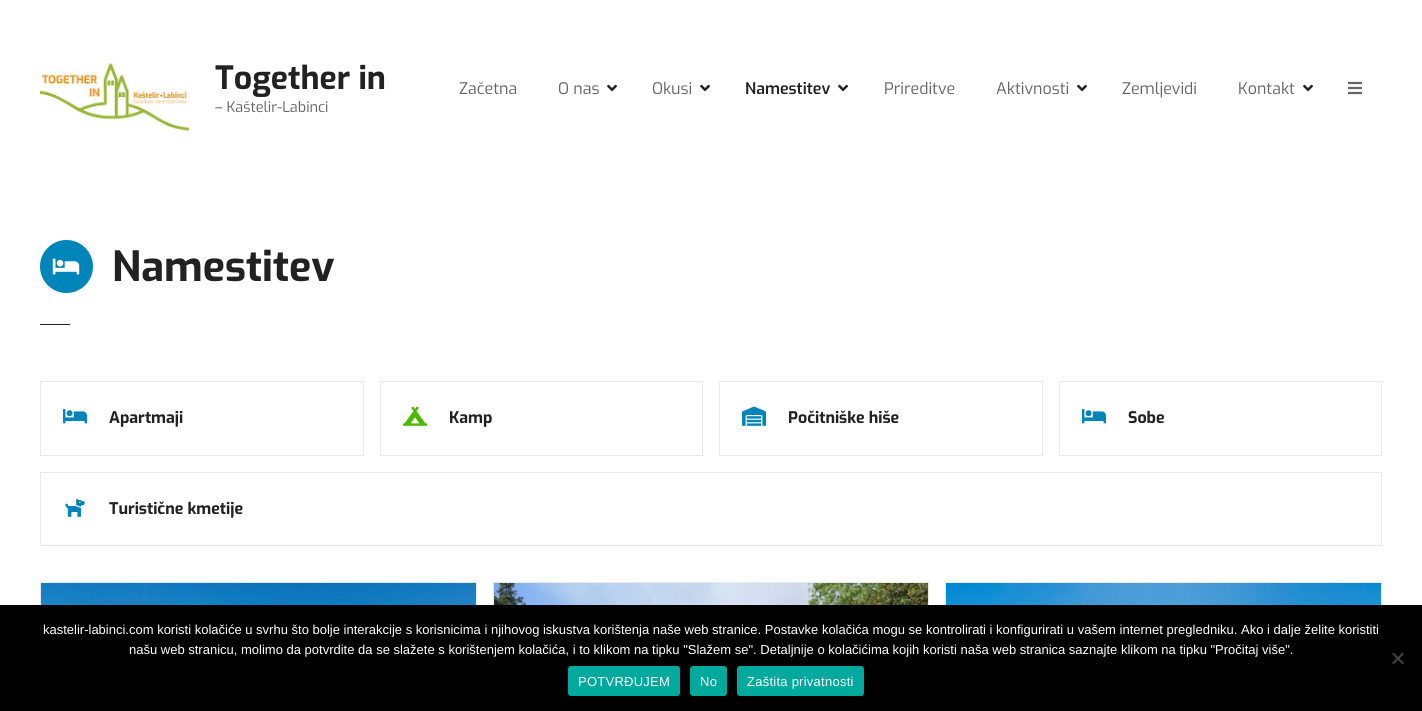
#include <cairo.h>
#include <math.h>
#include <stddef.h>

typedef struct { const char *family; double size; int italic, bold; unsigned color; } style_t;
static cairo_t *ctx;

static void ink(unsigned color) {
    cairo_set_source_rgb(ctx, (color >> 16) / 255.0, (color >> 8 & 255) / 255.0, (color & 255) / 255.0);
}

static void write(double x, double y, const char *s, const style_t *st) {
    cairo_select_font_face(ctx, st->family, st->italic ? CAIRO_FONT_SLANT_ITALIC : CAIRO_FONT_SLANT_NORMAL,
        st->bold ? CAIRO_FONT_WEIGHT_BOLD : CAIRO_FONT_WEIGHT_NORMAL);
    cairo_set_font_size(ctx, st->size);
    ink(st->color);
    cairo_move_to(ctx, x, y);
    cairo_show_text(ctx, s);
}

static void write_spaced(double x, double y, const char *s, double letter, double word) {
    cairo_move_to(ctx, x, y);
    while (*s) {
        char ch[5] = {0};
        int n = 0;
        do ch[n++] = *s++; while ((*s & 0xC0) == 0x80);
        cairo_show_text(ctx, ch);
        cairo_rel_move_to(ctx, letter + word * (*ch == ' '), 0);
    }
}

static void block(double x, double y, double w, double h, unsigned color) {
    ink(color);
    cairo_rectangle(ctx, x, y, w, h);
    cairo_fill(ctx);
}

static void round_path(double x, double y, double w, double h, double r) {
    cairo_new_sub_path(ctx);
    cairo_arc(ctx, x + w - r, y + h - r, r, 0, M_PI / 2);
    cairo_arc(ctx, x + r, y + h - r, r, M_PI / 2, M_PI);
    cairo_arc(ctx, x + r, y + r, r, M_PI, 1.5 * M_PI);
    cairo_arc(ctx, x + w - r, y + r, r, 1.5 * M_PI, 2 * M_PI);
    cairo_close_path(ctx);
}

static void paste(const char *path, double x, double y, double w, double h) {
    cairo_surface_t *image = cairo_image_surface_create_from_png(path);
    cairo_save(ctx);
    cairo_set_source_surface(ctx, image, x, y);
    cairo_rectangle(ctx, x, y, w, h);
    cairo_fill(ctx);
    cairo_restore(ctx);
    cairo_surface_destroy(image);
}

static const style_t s1 = {"Exo", 32, 0, 1, 0x222222};
static const style_t s2 = {"Exo", 14.5, 0, 0, 0x646464};
static const style_t s3 = {"Exo", 16, 0, 0, 0x646464};
static const style_t s4 = {"Exo SemiBold", 16, 0, 0, 0x222222};
static const style_t s5 = {"Exo", 41.5, 0, 1, 0x222222};
static const style_t s6 = {"Exo", 16, 0, 1, 0x222222};
static const style_t s7 = {"Liberation Sans", 13, 0, 0, 0xffffff};

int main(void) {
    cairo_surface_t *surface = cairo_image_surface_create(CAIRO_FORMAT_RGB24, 1422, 711);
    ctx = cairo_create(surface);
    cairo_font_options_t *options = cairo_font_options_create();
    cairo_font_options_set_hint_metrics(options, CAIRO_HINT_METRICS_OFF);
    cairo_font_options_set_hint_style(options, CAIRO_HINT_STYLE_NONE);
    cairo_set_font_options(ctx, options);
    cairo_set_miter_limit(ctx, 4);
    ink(0xffffff);
    cairo_paint(ctx);
    paste("pic1.png", 40, 62, 150, 74);
    write(215, 89, "Together in", &s1);
    write(215, 112, "– Kaštelir-Labinci", &s2);
    write(459, 94, "Začetna", &s3);
    write(558, 94, "O nas", &s3);
    paste("pic2.png", 607, 84, 10, 8);
    write(652, 94, "Okusi", &s3);
    paste("pic2.png", 700, 84, 10, 8);
    write(745, 94, "Namestitev", &s4);
    paste("pic2.png", 838, 84, 10, 8);
    write(884, 94, "Prireditve", &s3);
    write(996, 94, "Aktivnosti", &s3);
    paste("pic2.png", 1077, 84, 10, 8);
    write(1122, 94, "Zemljevidi", &s3);
    write(1238, 94, "Kontakt", &s3);
    paste("pic2.png", 1303, 84, 10, 8);
    paste("pic3.png", 1348, 81, 14, 14);
    ink(0x0085ba);
    cairo_arc(ctx, 66.5, 266.5, 26.5, 0, 2 * M_PI);
    cairo_fill(ctx);
    paste("pic4.png", 52, 258, 28, 17);
    write(112, 281, "Namestitev", &s5);
    block(40, 324, 30, 1, 0x222222);
    cairo_rectangle(ctx, 40.5, 381.5, 323, 74);
    ink(0xe9e9e9);
    cairo_set_line_width(ctx, 1);
    cairo_stroke(ctx);
    paste("pic5.png", 63, 409, 24, 15);
    write(109, 423, "Apartmaji", &s6);
    cairo_rectangle(ctx, 380.5, 381.5, 322, 74);
    ink(0xe9e9e9);
    cairo_stroke(ctx);
    paste("pic6.png", 403, 406, 24, 20);
    write(449, 423, "Kamp", &s6);
    cairo_rectangle(ctx, 719.5, 381.5, 323, 74);
    ink(0xe9e9e9);
    cairo_stroke(ctx);
    paste("pic7.png", 742, 406, 24, 20);
    write(788, 423, "Počitniške hiše", &s6);
    cairo_rectangle(ctx, 1059.5, 381.5, 322, 74);
    ink(0xe9e9e9);
    cairo_stroke(ctx);
    paste("pic5.png", 1082, 409, 24, 15);
    write(1128, 423, "Sobe", &s6);
    cairo_rectangle(ctx, 40.5, 472.5, 1341, 73);
    ink(0xe9e9e9);
    cairo_stroke(ctx);
    paste("pic8.png", 65, 498, 20, 19);
    write(109, 514, "Turistične kmetije", &s6);
    cairo_rectangle(ctx, 40.5, 582.5, 436, 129);
    ink(0xe9e9e9);
    cairo_stroke(ctx);
    paste("pic9.png", 41, 583, 435, 22);
    cairo_rectangle(ctx, 493.5, 582.5, 435, 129);
    cairo_stroke(ctx);
    paste("pic10.png", 494, 583, 434, 22);
    cairo_rectangle(ctx, 945.5, 582.5, 436, 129);
    cairo_stroke(ctx);
    paste("pic11.png", 946, 583, 435, 22);
    block(0, 605, 1422, 106, 0x000000);
    write(43, 634, "kastelir-labinci.com koristi kolačiće u svrhu što bolje interakcije s korisnicima i njihovog iskustva korištenja naše web stranice. Postavke kolačića mogu se kontrolirati i konfigurirati u vašem internet pregledniku. Ako i dalje želite koristiti", &s7);
    write(129, 654, "našu web stranicu, molimo da potvrdite da se slažete s korištenjem kolačića, i to klikom na tipku \"Slažem se\". Detaljnije o kolačićima kojih koristi naša web stranica saznajte klikom na tipku \"Pročitaj više\".", &s7);
    ink(0x404040);
    cairo_new_path(ctx);
    cairo_move_to(ctx, 1402.5, 652.5);
    cairo_line_to(ctx, 1404, 654);
    cairo_line_to(ctx, 1393.5, 664.5);
    cairo_line_to(ctx, 1392, 663);
    cairo_close_path(ctx);
    cairo_fill(ctx);
    cairo_new_path(ctx);
    cairo_move_to(ctx, 1392, 654);
    cairo_line_to(ctx, 1393.5, 652.5);
    cairo_line_to(ctx, 1404, 663);
    cairo_line_to(ctx, 1402.5, 664.5);
    cairo_close_path(ctx);
    cairo_fill(ctx);
    ink(0x00a99d);
    round_path(568, 666, 112, 30, 3);
    cairo_fill(ctx);
    ink(0xffffff);
    write_spaced(578, 686, "POTVRĐUJEM", 0.25, 0);
    ink(0x00a99d);
    round_path(690, 666, 37, 30, 3);
    cairo_fill(ctx);
    ink(0xffffff);
    write_spaced(700, 686, "No", 0.25, 0);
    ink(0x00a99d);
    round_path(737, 666, 127, 30, 3);
    cairo_fill(ctx);
    ink(0xffffff);
    write_spaced(747, 686, "Zaštita privatnosti", 0.25, 0);
    cairo_surface_write_to_png(surface, "screenshot.png");
    cairo_font_options_destroy(options);
    cairo_destroy(ctx);
    cairo_surface_destroy(surface);
    return 0;
}
